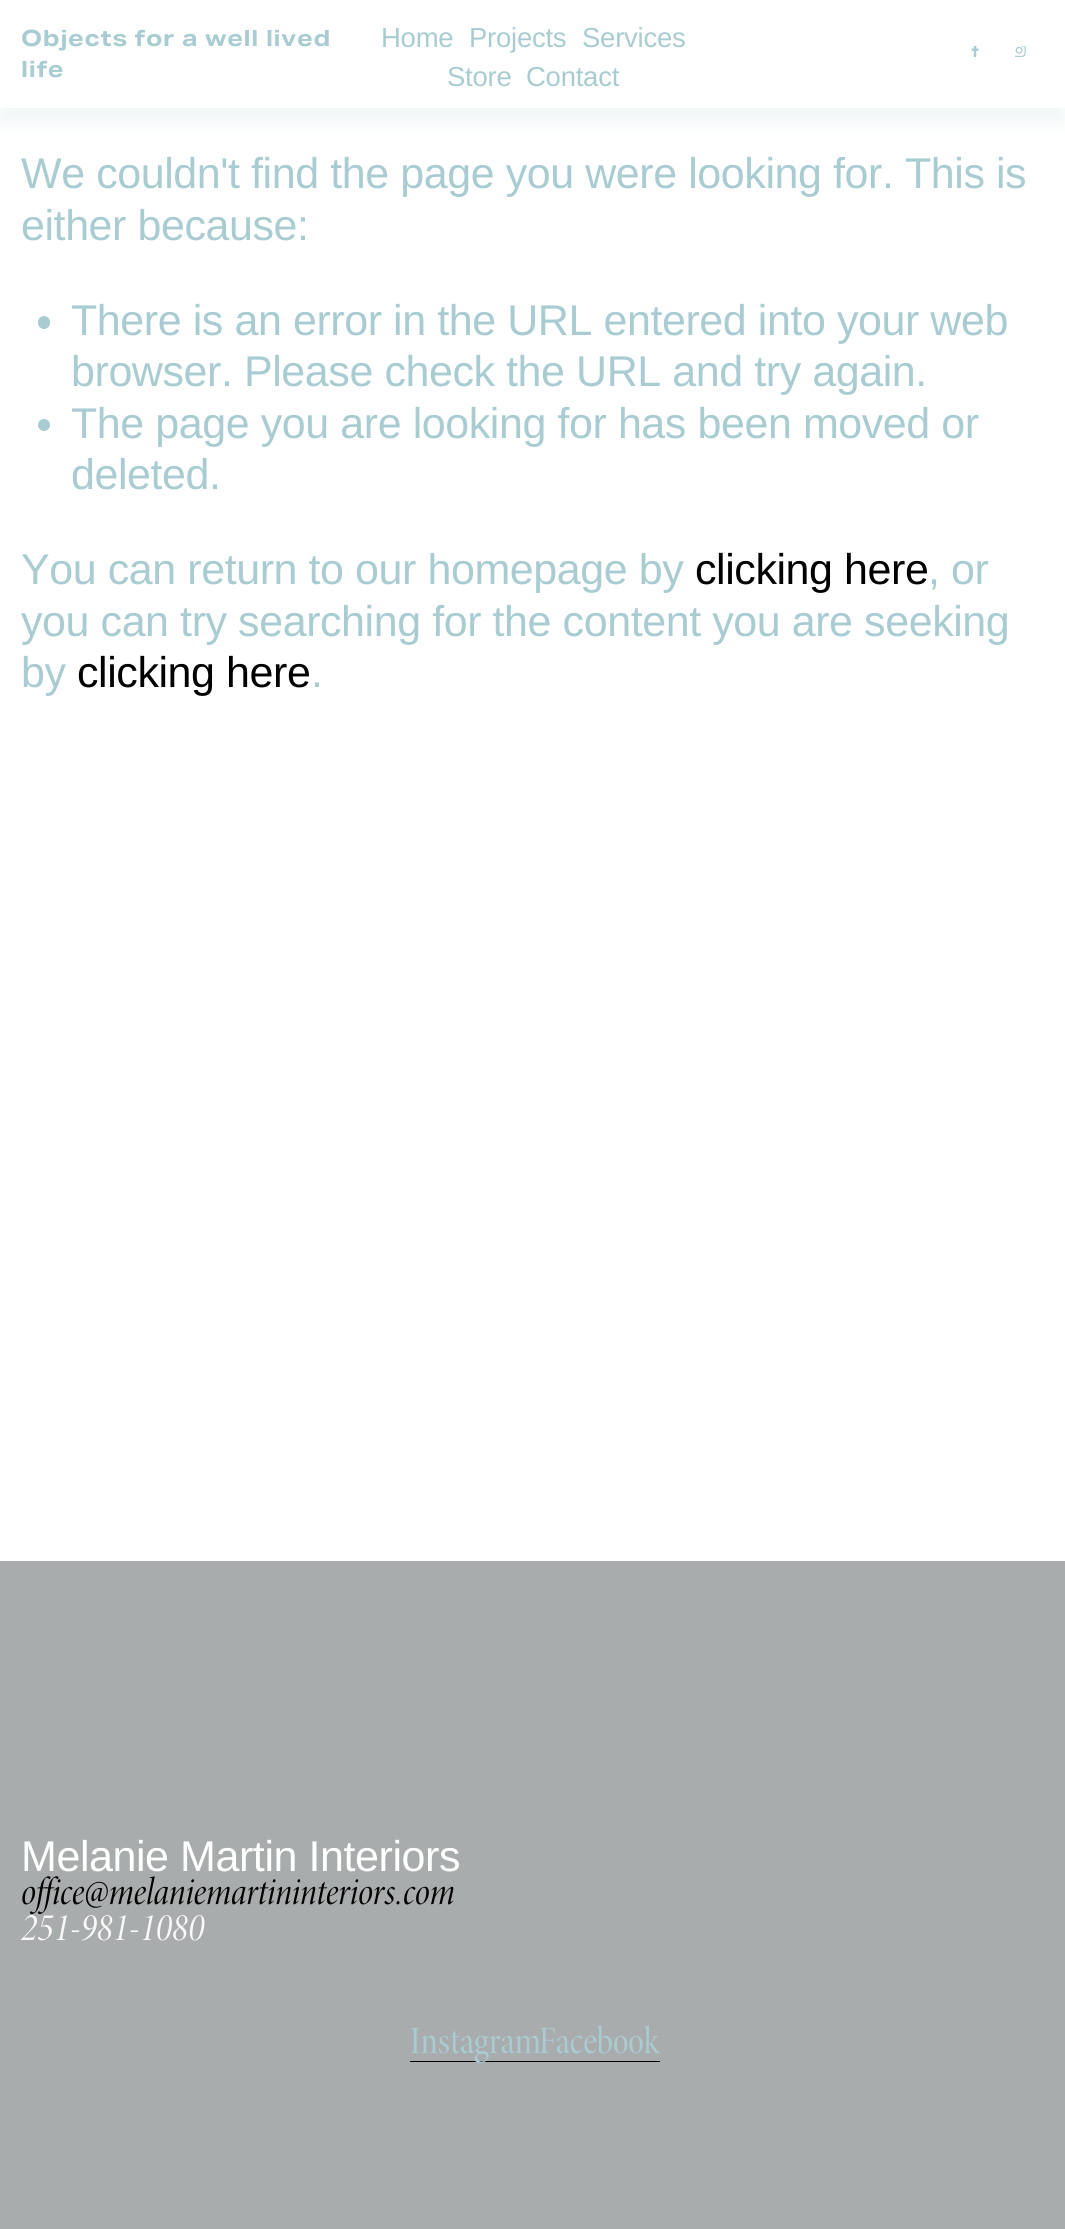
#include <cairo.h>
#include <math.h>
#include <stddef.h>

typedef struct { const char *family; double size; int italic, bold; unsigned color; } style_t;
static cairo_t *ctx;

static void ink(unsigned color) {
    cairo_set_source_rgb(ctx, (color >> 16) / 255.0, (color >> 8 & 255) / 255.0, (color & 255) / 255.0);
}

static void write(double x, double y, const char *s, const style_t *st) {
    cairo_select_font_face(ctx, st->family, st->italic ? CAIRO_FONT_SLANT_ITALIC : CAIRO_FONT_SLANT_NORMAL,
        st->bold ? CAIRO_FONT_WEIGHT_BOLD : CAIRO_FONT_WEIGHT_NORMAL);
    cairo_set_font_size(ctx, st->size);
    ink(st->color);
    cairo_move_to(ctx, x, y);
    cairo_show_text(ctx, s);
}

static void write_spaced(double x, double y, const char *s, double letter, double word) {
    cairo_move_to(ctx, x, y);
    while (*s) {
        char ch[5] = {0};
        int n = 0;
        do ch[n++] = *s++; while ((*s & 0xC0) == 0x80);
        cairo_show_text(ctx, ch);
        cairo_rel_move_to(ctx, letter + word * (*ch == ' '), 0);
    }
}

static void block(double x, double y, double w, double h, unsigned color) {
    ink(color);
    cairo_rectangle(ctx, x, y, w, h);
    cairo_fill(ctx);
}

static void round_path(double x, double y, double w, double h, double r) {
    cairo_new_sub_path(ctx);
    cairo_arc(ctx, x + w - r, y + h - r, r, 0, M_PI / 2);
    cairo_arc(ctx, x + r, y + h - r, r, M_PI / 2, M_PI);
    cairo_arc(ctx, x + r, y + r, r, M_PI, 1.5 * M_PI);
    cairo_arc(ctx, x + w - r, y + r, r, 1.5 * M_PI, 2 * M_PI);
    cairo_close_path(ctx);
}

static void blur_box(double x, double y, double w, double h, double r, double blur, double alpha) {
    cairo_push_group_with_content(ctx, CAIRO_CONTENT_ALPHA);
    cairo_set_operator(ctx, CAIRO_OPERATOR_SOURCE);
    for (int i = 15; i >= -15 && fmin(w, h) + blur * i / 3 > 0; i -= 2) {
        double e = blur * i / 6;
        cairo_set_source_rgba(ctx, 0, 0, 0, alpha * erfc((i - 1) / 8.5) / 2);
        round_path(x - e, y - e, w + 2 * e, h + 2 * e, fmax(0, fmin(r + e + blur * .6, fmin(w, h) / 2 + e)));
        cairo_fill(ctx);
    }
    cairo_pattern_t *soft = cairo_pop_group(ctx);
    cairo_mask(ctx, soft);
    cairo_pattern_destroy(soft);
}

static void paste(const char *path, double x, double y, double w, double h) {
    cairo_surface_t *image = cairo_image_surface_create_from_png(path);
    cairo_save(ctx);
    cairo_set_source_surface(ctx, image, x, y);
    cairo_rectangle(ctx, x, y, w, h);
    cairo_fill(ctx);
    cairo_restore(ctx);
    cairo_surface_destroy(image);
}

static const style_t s1 = {"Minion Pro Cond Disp", 39.25, 1, 0, 0x000000};
static const style_t s2 = {"Minion Pro Cond Disp", 39.25, 1, 0, 0xf9f9f9};
static const style_t s3 = {"Minion Pro Cond Disp", 39.25, 0, 0, 0xa9ccd2};

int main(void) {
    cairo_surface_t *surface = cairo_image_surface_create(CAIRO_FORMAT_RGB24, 1065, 2229);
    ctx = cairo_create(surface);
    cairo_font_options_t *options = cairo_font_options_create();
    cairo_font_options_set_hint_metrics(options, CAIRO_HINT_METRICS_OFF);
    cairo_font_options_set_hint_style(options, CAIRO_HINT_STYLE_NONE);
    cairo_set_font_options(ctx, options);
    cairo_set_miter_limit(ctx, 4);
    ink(0xffffff);
    cairo_paint(ctx);
    cairo_save(ctx);
    cairo_set_fill_rule(ctx, CAIRO_FILL_RULE_EVEN_ODD);
    cairo_new_path(ctx);
    cairo_move_to(ctx, 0, 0);
    cairo_line_to(ctx, 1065, 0);
    cairo_line_to(ctx, 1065, 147);
    cairo_line_to(ctx, 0, 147);
    cairo_close_path(ctx);
    cairo_move_to(ctx, 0, 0);
    cairo_line_to(ctx, 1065, 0);
    cairo_line_to(ctx, 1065, 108);
    cairo_line_to(ctx, 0, 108);
    cairo_close_path(ctx);
    cairo_clip(ctx);
    ink(0xf2f7f8);
    blur_box(0, 15, 1065, 108, 0, 7.5, 1);
    cairo_restore(ctx);
    cairo_select_font_face(ctx, "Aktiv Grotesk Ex", CAIRO_FONT_SLANT_NORMAL, CAIRO_FONT_WEIGHT_BOLD);
    cairo_set_font_size(ctx, 22.5);
    ink(0xa9ccd2);
    write_spaced(21, 46, "Objects for a well lived", 0.7, 0);
    write_spaced(21, 77, "life", 0.7, 0);
    cairo_select_font_face(ctx, "Liberation Sans", CAIRO_FONT_SLANT_NORMAL, CAIRO_FONT_WEIGHT_NORMAL);
    cairo_set_font_size(ctx, 27.5);
    write_spaced(381, 47, "Home", -0.25, 0);
    write_spaced(469, 47, "Projects", -0.25, 0);
    write_spaced(582, 47, "Services", -0.25, 0);
    write_spaced(447, 86, "Store", -0.25, 0);
    write_spaced(526, 86, "Contact", -0.25, 0);
    paste("pic1.png", 971, 46, 8, 11);
    paste("pic2.png", 1015, 46, 11, 11);
    cairo_set_font_size(ctx, 43);
    write_spaced(21, 188, "We couldn't find the page you were looking for. This is", -0.43, 0);
    write_spaced(21, 240, "either because:", -0.43, 0);
    round_path(38, 316, 12, 13, 6);
    cairo_fill(ctx);
    write_spaced(71, 335, "There is an error in the URL entered into your web", -0.43, 0);
    write_spaced(71, 386, "browser. Please check the URL and try again.", -0.43, 0);
    cairo_new_path(ctx);
    cairo_arc(ctx, 44, 425, 6, 0, 2 * M_PI);
    cairo_fill(ctx);
    write_spaced(71, 438, "The page you are looking for has been moved or", -0.43, 0);
    write_spaced(71, 489, "deleted.", -0.43, 0);
    write_spaced(21, 584, "You can return to our homepage by", -0.43, 0);
    ink(0x000000);
    write_spaced(695, 584, "clicking here", -0.43, 0);
    ink(0xa9ccd2);
    write_spaced(928, 584, ", or", -0.43, 0);
    write_spaced(21, 636, "you can try searching for the content you are seeking", -0.43, 0);
    write_spaced(21, 687, "by", -0.43, 0);
    ink(0x000000);
    write_spaced(77, 687, "clicking here", -0.43, 0);
    ink(0xa9ccd2);
    write_spaced(311, 687, ".", -0.43, 0);
    block(0, 1561, 1065, 668, 0xa9acac);
    ink(0xffffff);
    write_spaced(21, 1871, "Melanie Martin Interiors", -0.43, 0);
    write(21, 1904, "office@melaniemartininteriors.com", &s1);
    write(21, 1940, "251-981-1080", &s2);
    block(410, 2061, 130, 1, 0x000000);
    write(410, 2053, "Instagram", &s3);
    write(539, 2053, "Facebook", &s3);
    block(539, 2061, 121, 1, 0x000000);
    cairo_surface_write_to_png(surface, "screenshot.png");
    cairo_font_options_destroy(options);
    cairo_destroy(ctx);
    cairo_surface_destroy(surface);
    return 0;
}
